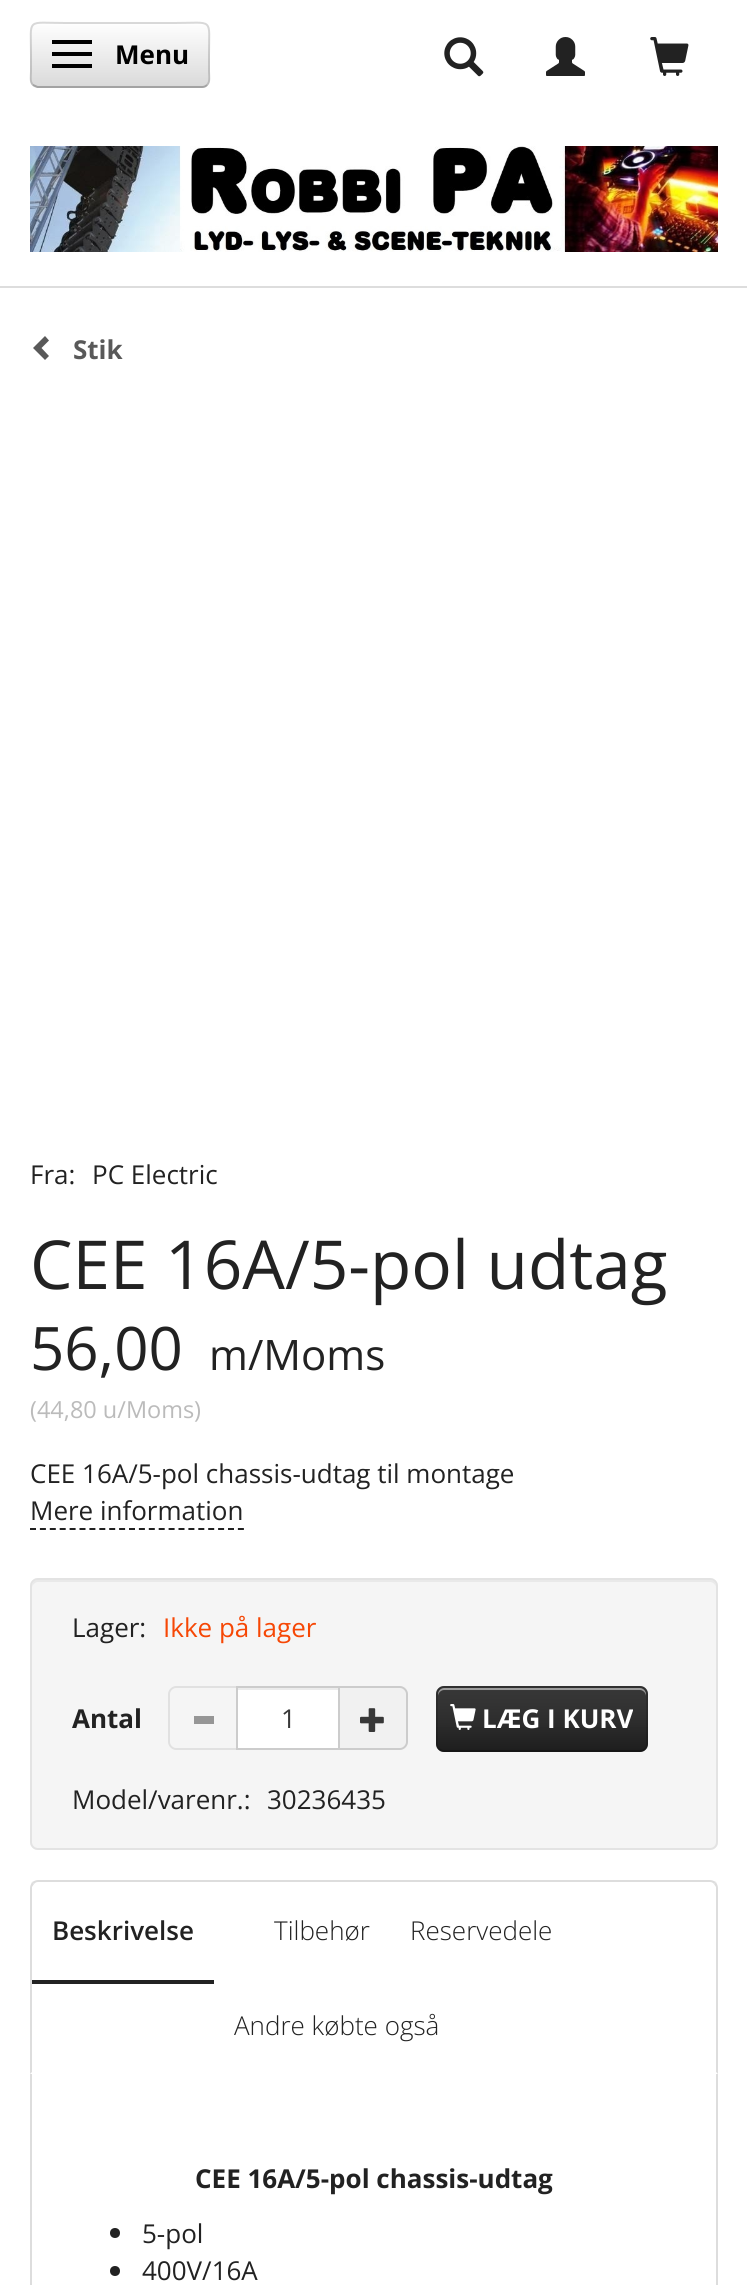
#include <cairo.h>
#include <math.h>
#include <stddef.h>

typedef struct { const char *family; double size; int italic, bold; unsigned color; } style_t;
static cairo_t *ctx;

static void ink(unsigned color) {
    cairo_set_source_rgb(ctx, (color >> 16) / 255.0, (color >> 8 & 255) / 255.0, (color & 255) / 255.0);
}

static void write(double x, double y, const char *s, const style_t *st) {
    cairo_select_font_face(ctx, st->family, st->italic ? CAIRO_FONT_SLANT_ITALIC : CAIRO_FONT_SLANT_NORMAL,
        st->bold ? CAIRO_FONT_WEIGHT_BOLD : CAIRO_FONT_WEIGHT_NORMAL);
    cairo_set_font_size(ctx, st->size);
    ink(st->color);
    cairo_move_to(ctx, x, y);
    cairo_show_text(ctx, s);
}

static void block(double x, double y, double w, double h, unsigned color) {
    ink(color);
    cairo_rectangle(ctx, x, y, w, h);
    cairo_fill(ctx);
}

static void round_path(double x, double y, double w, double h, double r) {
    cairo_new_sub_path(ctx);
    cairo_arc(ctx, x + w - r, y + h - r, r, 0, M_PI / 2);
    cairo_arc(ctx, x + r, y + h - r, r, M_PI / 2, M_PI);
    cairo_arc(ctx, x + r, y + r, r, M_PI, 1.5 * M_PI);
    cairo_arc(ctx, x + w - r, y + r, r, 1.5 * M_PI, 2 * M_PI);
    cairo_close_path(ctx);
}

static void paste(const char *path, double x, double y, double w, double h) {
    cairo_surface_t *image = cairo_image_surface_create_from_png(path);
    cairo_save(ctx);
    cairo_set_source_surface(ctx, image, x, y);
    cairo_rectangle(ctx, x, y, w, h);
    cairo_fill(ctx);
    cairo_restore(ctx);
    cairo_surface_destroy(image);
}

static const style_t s1 = {"Open Sans", 26, 0, 1, 0x000000};
static const style_t s2 = {"Open Sans", 26, 0, 1, 0x595959};
static const style_t s3 = {"Open Sans", 26, 0, 0, 0x222222};
static const style_t s4 = {"Open Sans", 67.5, 0, 0, 0x222222};
static const style_t s5 = {"Open Sans", 60, 0, 0, 0x222222};
static const style_t s6 = {"Open Sans", 42, 0, 0, 0x222222};
static const style_t s7 = {"Open Sans", 23.5, 0, 0, 0xbbbbbb};
static const style_t s8 = {"Open Sans", 26, 0, 0, 0xf64705};
static const style_t s9 = {"Open Sans", 26, 0, 1, 0x222222};
static const style_t s10 = {"Open Sans", 26, 0, 0, 0x383838};
static const style_t s11 = {"Open Sans", 26, 0, 1, 0xffffff};
static const style_t s12 = {"Open Sans SemiBold", 26, 0, 0, 0x222222};
static const style_t s13 = {"Open Sans Light", 26, 0, 0, 0x222222};

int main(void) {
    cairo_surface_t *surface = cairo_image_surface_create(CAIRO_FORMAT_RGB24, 747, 2285);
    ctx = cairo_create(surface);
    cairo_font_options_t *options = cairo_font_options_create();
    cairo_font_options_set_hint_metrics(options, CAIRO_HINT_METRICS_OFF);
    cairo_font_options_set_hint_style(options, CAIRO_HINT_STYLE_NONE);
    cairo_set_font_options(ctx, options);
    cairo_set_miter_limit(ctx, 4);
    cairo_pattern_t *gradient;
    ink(0xffffff);
    cairo_paint(ctx);
    gradient = cairo_pattern_create_linear(120, 22, 120, 88);
    cairo_pattern_add_color_stop_rgba(gradient, 0, 1, 1, 1, 1);
    cairo_pattern_add_color_stop_rgba(gradient, 1, 0.851, 0.851, 0.851, 1);
    cairo_set_source(ctx, gradient);
    cairo_pattern_destroy(gradient);
    round_path(30, 22, 180, 66, 8);
    cairo_fill(ctx);
    cairo_new_path(ctx);
    cairo_move_to(ctx, 207, 85);
    cairo_curve_to(ctx, 206, 86, 204.5, 87, 202.5, 87);
    cairo_line_to(ctx, 37.5, 87);
    cairo_line_to(ctx, 33, 85);
    cairo_set_source_rgba(ctx, 0, 0, 0, 0.25);
    cairo_stroke(ctx);
    cairo_new_path(ctx);
    cairo_move_to(ctx, 33, 85);
    cairo_curve_to(ctx, 29.5, 81.5, 31, 75.5, 31, 71.5);
    cairo_line_to(ctx, 31, 55);
    cairo_curve_to(ctx, 31, 17, 25.5, 23, 65.5, 23);
    cairo_line_to(ctx, 174.5, 23);
    cairo_curve_to(ctx, 214.5, 23, 209, 17, 209, 55);
    cairo_line_to(ctx, 209, 71.5);
    cairo_curve_to(ctx, 209, 75.5, 210.5, 81.5, 207, 85);
    cairo_set_source_rgba(ctx, 0, 0, 0, 0.15);
    cairo_stroke(ctx);
    block(52, 40, 40, 4, 0x000000);
    block(52, 52, 40, 4, 0x000000);
    block(52, 64, 40, 4, 0x000000);
    write(115, 64, "Menu", &s1);
    paste("pic1.png", 444, 37, 40, 40);
    paste("pic2.png", 546, 37, 39, 39);
    paste("pic3.png", 650, 37, 39, 39);
    paste("pic4.png", 30, 146, 688, 106);
    block(0, 286, 747, 2, 0xdddddd);
    ink(0x595959);
    cairo_new_path(ctx);
    cairo_move_to(ctx, 49, 340.5);
    cairo_line_to(ctx, 41.5, 348);
    cairo_line_to(ctx, 49, 356);
    cairo_line_to(ctx, 45, 360);
    cairo_line_to(ctx, 33, 348);
    cairo_line_to(ctx, 45, 336);
    cairo_close_path(ctx);
    cairo_fill(ctx);
    write(73, 359, "Stik", &s2);
    write(30, 1184, "Fra:", &s3);
    write(92, 1184, "PC Electric", &s3);
    write(30, 1289, "CEE 16A/5-pol udtag", &s4);
    write(30, 1370, "56,00", &s5);
    write(209, 1370, "m/Moms", &s6);
    write(30, 1418, "(44,80 u/Moms)", &s7);
    write(30, 1483, "CEE 16A/5-pol chassis-udtag til montage", &s3);
    write(30, 1520, "Mere information", &s3);
    cairo_new_path(ctx);
    cairo_move_to(ctx, 30, 1529);
    cairo_line_to(ctx, 244, 1529);
    cairo_set_dash(ctx, (double[]){6, 3.9}, 2, 0);
    cairo_stroke(ctx);
    ink(0xf5f5f5);
    round_path(30, 1578, 688, 272, 8);
    cairo_fill(ctx);
    ink(0xe9e9e9);
    cairo_new_path(ctx);
    cairo_move_to(ctx, 38, 1582);
    cairo_line_to(ctx, 710, 1582);
    cairo_curve_to(ctx, 713, 1582, 716, 1585, 716, 1588);
    cairo_curve_to(ctx, 716, 1584, 715, 1580, 710, 1580);
    cairo_line_to(ctx, 38, 1580);
    cairo_curve_to(ctx, 33, 1580, 32, 1584, 32, 1588);
    cairo_curve_to(ctx, 32, 1585, 35, 1582, 38, 1582);
    cairo_close_path(ctx);
    cairo_fill(ctx);
    round_path(31, 1579, 686, 270, 7);
    ink(0xe3e3e3);
    cairo_set_dash(ctx, NULL, 0, 0);
    cairo_stroke(ctx);
    write(72, 1637, "Lager:", &s3);
    write(163, 1637, "Ikke på lager", &s8);
    write(72, 1728, "Antal", &s9);
    ink(0xe1e1e1);
    cairo_set_fill_rule(ctx, CAIRO_FILL_RULE_EVEN_ODD);
    cairo_new_path(ctx);
    cairo_move_to(ctx, 176, 1686);
    cairo_line_to(ctx, 236, 1686);
    cairo_line_to(ctx, 236, 1750);
    cairo_line_to(ctx, 176, 1750);
    cairo_curve_to(ctx, 172, 1750, 168, 1746, 168, 1742);
    cairo_line_to(ctx, 168, 1694);
    cairo_curve_to(ctx, 168, 1690, 172, 1686, 176, 1686);
    cairo_close_path(ctx);
    cairo_move_to(ctx, 176, 1688);
    cairo_line_to(ctx, 236, 1688);
    cairo_line_to(ctx, 236, 1748);
    cairo_line_to(ctx, 176, 1748);
    cairo_curve_to(ctx, 173, 1748, 170, 1745, 170, 1742);
    cairo_line_to(ctx, 170, 1694);
    cairo_curve_to(ctx, 170, 1691, 173, 1688, 176, 1688);
    cairo_close_path(ctx);
    cairo_fill(ctx);
    block(194, 1716, 20, 8, 0x969696);
    block(238, 1690, 100, 58, 0xffffff);
    block(238, 1688, 100, 2, 0xececec);
    cairo_rectangle(ctx, 237, 1687, 102, 62);
    ink(0xcccccc);
    cairo_stroke(ctx);
    write(281, 1728, "1", &s10);
    ink(0xf1f1f1);
    cairo_new_path(ctx);
    cairo_move_to(ctx, 340, 1686);
    cairo_line_to(ctx, 400, 1686);
    cairo_curve_to(ctx, 404.5, 1686, 408, 1689.5, 408, 1694);
    cairo_line_to(ctx, 408, 1742);
    cairo_curve_to(ctx, 408, 1746.5, 404.5, 1750, 400, 1750);
    cairo_line_to(ctx, 340, 1750);
    cairo_close_path(ctx);
    cairo_fill(ctx);
    ink(0xcccccc);
    cairo_new_path(ctx);
    cairo_move_to(ctx, 340, 1686);
    cairo_line_to(ctx, 400, 1686);
    cairo_curve_to(ctx, 404, 1686, 408, 1690, 408, 1694);
    cairo_line_to(ctx, 408, 1742);
    cairo_curve_to(ctx, 408, 1746, 404, 1750, 400, 1750);
    cairo_line_to(ctx, 340, 1750);
    cairo_close_path(ctx);
    cairo_move_to(ctx, 340, 1688);
    cairo_line_to(ctx, 400, 1688);
    cairo_curve_to(ctx, 403, 1688, 406, 1691, 406, 1694);
    cairo_line_to(ctx, 406, 1742);
    cairo_curve_to(ctx, 406, 1745, 403, 1748, 400, 1748);
    cairo_line_to(ctx, 340, 1748);
    cairo_close_path(ctx);
    cairo_fill(ctx);
    paste("pic5.png", 360, 1708, 24, 24);
    ink(0x222222);
    round_path(436, 1686, 212, 66, 8);
    cairo_fill(ctx);
    gradient = cairo_pattern_create_linear(542, 1686, 542, 1752);
    cairo_pattern_add_color_stop_rgba(gradient, 0, 1, 1, 1, 0.1);
    cairo_pattern_add_color_stop_rgba(gradient, 1, 0, 0, 0, 0.15);
    cairo_set_source(ctx, gradient);
    cairo_pattern_destroy(gradient);
    round_path(436, 1686, 212, 66, 8);
    cairo_fill(ctx);
    ink(0x9b9b9b);
    cairo_set_fill_rule(ctx, CAIRO_FILL_RULE_WINDING);
    cairo_new_path(ctx);
    cairo_move_to(ctx, 444, 1690);
    cairo_line_to(ctx, 640, 1690);
    cairo_curve_to(ctx, 643, 1690, 646, 1693, 646, 1696);
    cairo_line_to(ctx, 646, 1694);
    cairo_curve_to(ctx, 646, 1691, 643, 1688, 640, 1688);
    cairo_line_to(ctx, 444, 1688);
    cairo_curve_to(ctx, 441, 1688, 438, 1691, 438, 1694);
    cairo_line_to(ctx, 438, 1696);
    cairo_curve_to(ctx, 438, 1693, 441, 1690, 444, 1690);
    cairo_close_path(ctx);
    cairo_fill(ctx);
    cairo_new_path(ctx);
    cairo_move_to(ctx, 645, 1749);
    cairo_curve_to(ctx, 643.5, 1750.5, 642, 1751, 640, 1751);
    cairo_line_to(ctx, 444, 1751);
    cairo_curve_to(ctx, 442, 1751, 440.5, 1750.5, 439, 1749);
    cairo_set_source_rgba(ctx, 0, 0, 0, 0.25);
    cairo_stroke(ctx);
    cairo_new_path(ctx);
    cairo_move_to(ctx, 439, 1749);
    cairo_curve_to(ctx, 437.5, 1747.5, 437, 1746, 437, 1744);
    cairo_line_to(ctx, 437, 1694);
    cairo_curve_to(ctx, 437, 1692, 437.5, 1690.5, 439, 1689);
    cairo_curve_to(ctx, 440.5, 1687.5, 442, 1687, 444, 1687);
    cairo_line_to(ctx, 640, 1687);
    cairo_curve_to(ctx, 642, 1687, 643.5, 1687.5, 645, 1689);
    cairo_curve_to(ctx, 646.5, 1690.5, 647, 1692, 647, 1694);
    cairo_line_to(ctx, 647, 1744);
    cairo_curve_to(ctx, 647, 1746, 646.5, 1747.5, 645, 1749);
    cairo_set_source_rgba(ctx, 0, 0, 0, 0.15);
    cairo_stroke(ctx);
    paste("pic6.png", 450, 1704, 26, 26);
    write(482, 1728, "LÆG I KURV", &s11);
    write(72, 1809, "Model/varenr.:", &s3);
    write(267, 1809, "30236435", &s3);
    ink(0xdddddd);
    cairo_new_path(ctx);
    cairo_move_to(ctx, 38, 1880);
    cairo_curve_to(ctx, 36, 1880, 34, 1881, 32, 1882);
    cairo_line_to(ctx, 34, 1884);
    cairo_curve_to(ctx, 35, 1883, 36, 1882, 38, 1882);
    cairo_line_to(ctx, 710, 1882);
    cairo_curve_to(ctx, 712, 1882, 713, 1883, 714, 1884);
    cairo_line_to(ctx, 716, 1882);
    cairo_curve_to(ctx, 714, 1881, 712, 1880, 710, 1880);
    cairo_close_path(ctx);
    cairo_fill(ctx);
    cairo_new_path(ctx);
    cairo_move_to(ctx, 718, 2074);
    cairo_line_to(ctx, 718, 1888);
    cairo_curve_to(ctx, 718, 1886, 717, 1884, 716, 1882);
    cairo_line_to(ctx, 714, 1884);
    cairo_line_to(ctx, 716, 1887);
    cairo_line_to(ctx, 716, 2072);
    cairo_close_path(ctx);
    cairo_fill(ctx);
    cairo_new_path(ctx);
    cairo_move_to(ctx, 30, 2074);
    cairo_line_to(ctx, 32, 2072);
    cairo_line_to(ctx, 32, 1887);
    cairo_line_to(ctx, 34, 1884);
    cairo_line_to(ctx, 32, 1882);
    cairo_curve_to(ctx, 31, 1884, 30, 1886, 30, 1888);
    cairo_close_path(ctx);
    cairo_fill(ctx);
    block(32, 1980, 182, 4, 0x222222);
    write(52, 1940, "Beskrivelse", &s12);
    write(274, 1940, "Tilbehør", &s13);
    write(410, 1940, "Reservedele", &s13);
    write(234, 2035, "Andre købte også", &s13);
    ink(0xdddddd);
    cairo_set_fill_rule(ctx, CAIRO_FILL_RULE_EVEN_ODD);
    cairo_new_path(ctx);
    cairo_move_to(ctx, 30, 2074);
    cairo_line_to(ctx, 718, 2074);
    cairo_line_to(ctx, 718, 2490);
    cairo_curve_to(ctx, 718, 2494, 714, 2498, 710, 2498);
    cairo_line_to(ctx, 38, 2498);
    cairo_curve_to(ctx, 34, 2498, 30, 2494, 30, 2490);
    cairo_close_path(ctx);
    cairo_move_to(ctx, 32, 2074);
    cairo_line_to(ctx, 716, 2074);
    cairo_line_to(ctx, 716, 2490);
    cairo_curve_to(ctx, 716, 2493, 713, 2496, 710, 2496);
    cairo_line_to(ctx, 38, 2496);
    cairo_curve_to(ctx, 35, 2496, 32, 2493, 32, 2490);
    cairo_close_path(ctx);
    cairo_fill(ctx);
    write(195, 2188, "CEE 16A/5-pol chassis-udtag", &s9);
    cairo_new_path(ctx);
    cairo_arc(ctx, 115, 2233, 5, 0, 2 * M_PI);
    cairo_fill(ctx);
    write(142, 2243, "5-pol", &s3);
    cairo_new_path(ctx);
    cairo_arc(ctx, 115, 2271, 5, 0, 2 * M_PI);
    cairo_fill(ctx);
    write(142, 2280, "400V/16A", &s3);
    cairo_surface_write_to_png(surface, "screenshot.png");
    cairo_font_options_destroy(options);
    cairo_destroy(ctx);
    cairo_surface_destroy(surface);
    return 0;
}
